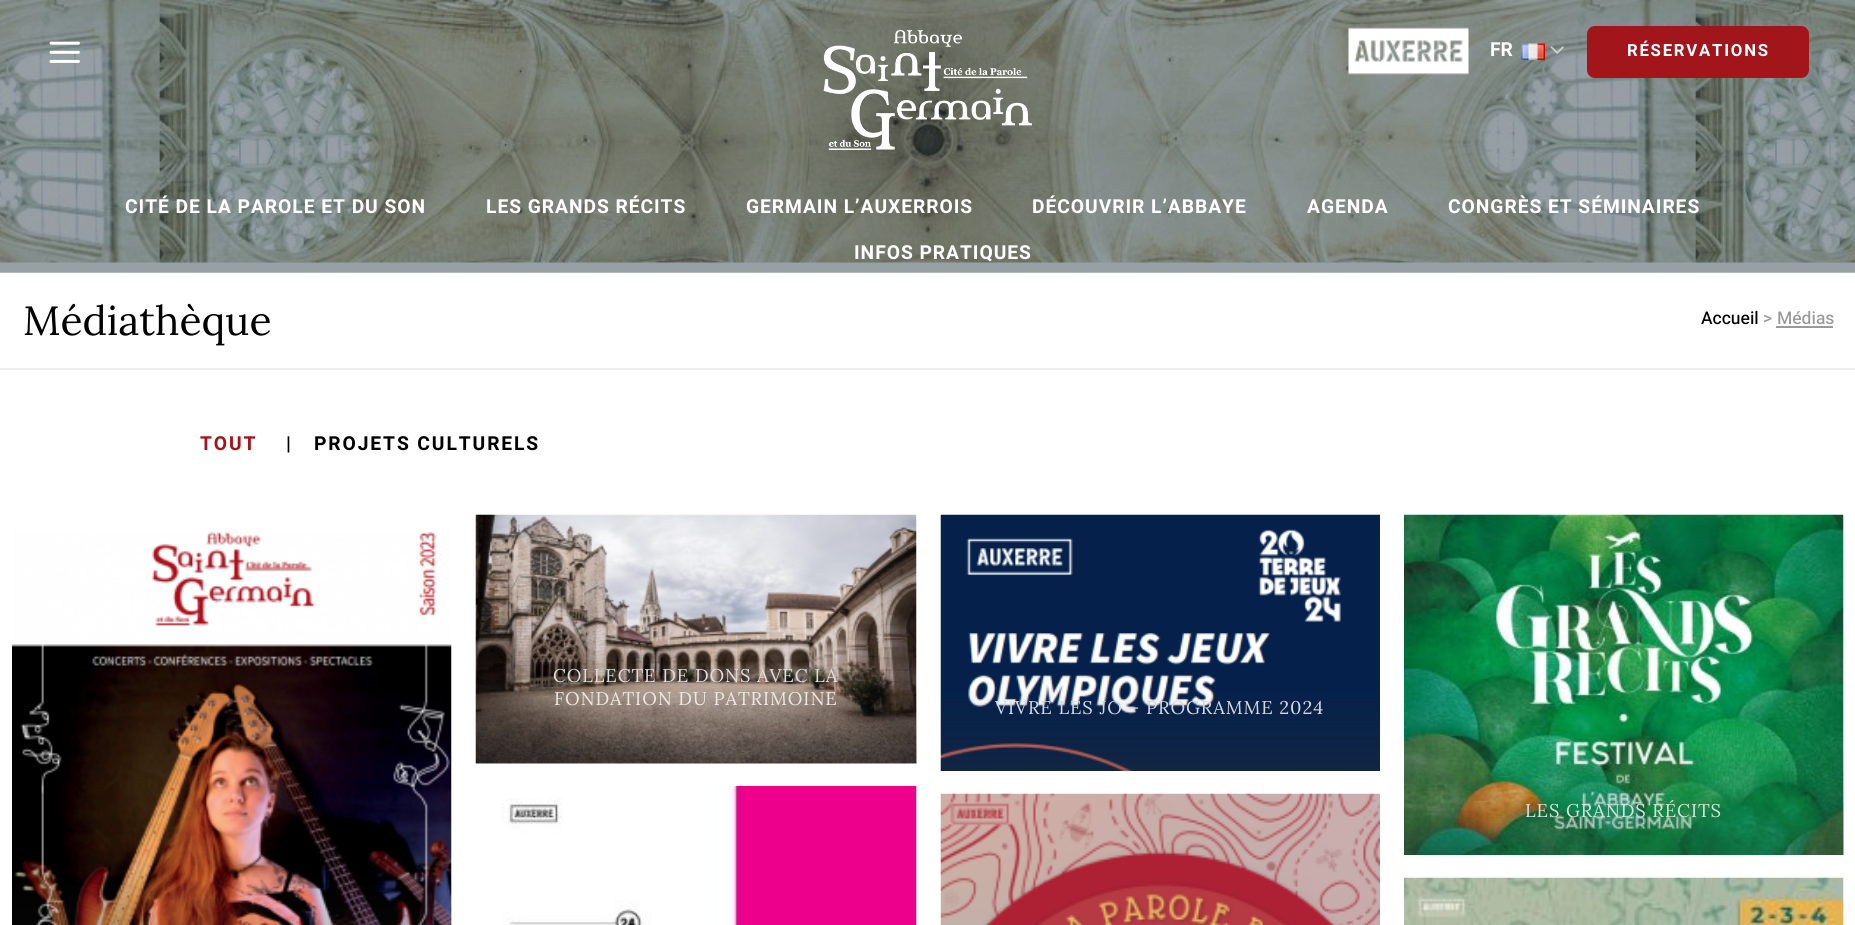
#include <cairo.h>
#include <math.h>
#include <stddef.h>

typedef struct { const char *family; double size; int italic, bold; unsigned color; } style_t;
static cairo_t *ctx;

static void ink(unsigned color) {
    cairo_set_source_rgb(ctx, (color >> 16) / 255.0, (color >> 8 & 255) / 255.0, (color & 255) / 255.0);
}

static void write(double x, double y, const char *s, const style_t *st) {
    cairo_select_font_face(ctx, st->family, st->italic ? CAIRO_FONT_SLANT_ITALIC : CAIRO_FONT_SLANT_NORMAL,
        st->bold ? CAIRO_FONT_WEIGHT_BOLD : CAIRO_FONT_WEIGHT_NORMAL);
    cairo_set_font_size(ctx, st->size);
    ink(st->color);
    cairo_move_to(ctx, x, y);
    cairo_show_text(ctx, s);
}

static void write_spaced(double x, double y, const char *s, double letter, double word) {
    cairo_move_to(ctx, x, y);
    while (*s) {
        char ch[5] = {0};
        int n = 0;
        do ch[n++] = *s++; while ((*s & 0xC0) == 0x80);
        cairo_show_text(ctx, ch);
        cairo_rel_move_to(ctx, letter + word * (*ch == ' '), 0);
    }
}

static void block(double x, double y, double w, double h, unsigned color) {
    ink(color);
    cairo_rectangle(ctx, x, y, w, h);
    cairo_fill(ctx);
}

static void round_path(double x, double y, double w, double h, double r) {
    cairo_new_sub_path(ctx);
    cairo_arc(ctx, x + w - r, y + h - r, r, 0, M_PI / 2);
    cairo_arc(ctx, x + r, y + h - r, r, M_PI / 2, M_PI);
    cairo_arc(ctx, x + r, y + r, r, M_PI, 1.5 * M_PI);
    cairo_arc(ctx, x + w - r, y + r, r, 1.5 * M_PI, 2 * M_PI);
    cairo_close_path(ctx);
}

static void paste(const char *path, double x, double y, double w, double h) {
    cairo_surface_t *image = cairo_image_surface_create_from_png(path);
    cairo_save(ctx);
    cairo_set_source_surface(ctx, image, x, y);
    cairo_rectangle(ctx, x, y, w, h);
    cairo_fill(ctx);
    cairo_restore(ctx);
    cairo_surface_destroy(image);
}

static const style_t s1 = {"Heebo", 19.25, 0, 1, 0xffffff};
static const style_t s2 = {"Lora", 40.75, 0, 0, 0x000000};
static const style_t s3 = {"Heebo Medium", 17.5, 0, 0, 0x000000};
static const style_t s4 = {"Heebo Medium", 17.5, 0, 0, 0x999999};

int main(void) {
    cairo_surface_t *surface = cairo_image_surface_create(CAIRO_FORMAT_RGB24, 1855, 925);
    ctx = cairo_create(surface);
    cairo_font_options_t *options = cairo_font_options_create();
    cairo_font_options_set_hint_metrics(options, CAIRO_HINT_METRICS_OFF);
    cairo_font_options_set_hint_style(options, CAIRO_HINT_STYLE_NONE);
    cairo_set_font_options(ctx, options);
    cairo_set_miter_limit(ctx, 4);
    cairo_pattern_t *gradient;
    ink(0xffffff);
    cairo_paint(ctx);
    block(0, 262, 1855, 10, 0x97a0a5);
    block(0, 272, 1855, 1, 0xb2b9bc);
    paste("pic1.png", 0, 0, 1855, 263);
    paste("pic2.png", 49, 41, 31, 22);
    paste("pic3.png", 823, 30, 209, 120);
    paste("pic4.png", 1348, 27, 121, 48);
    write(1490, 56, "FR", &s1);
    paste("pic5.png", 1521, 43, 24, 17);
    paste("pic6.png", 1550, 46, 14, 8);
    ink(0xa2151b);
    round_path(1587, 26, 222, 52, 8);
    cairo_fill(ctx);
    cairo_set_font_size(ctx, 16.75);
    ink(0xffffff);
    write_spaced(1627, 56, "RÉSERVATIONS", 1.75, 0);
    cairo_set_font_size(ctx, 19.25);
    write_spaced(125, 213, "CITÉ DE LA PAROLE ET DU SON", 0.95, 0);
    write_spaced(486, 213, "LES GRANDS RÉCITS", 0.95, 0);
    write_spaced(746, 213, "GERMAIN L’AUXERROIS", 0.95, 0);
    write_spaced(1032, 213, "DÉCOUVRIR L’ABBAYE", 0.95, 0);
    write_spaced(1307, 213, "AGENDA", 0.95, 0);
    write_spaced(1448, 213, "CONGRÈS ET SÉMINAIRES", 0.95, 0);
    write_spaced(854, 259, "INFOS PRATIQUES", 0.95, 0);
    block(0, 368, 1855, 2, 0xececec);
    write(23, 335, "Médiathèque", &s2);
    write(1701, 324, "Accueil", &s3);
    write(1763, 324, "> Médias", &s4);
    block(1776, 326, 57, 2, 0x999999);
    cairo_select_font_face(ctx, "Heebo", CAIRO_FONT_SLANT_NORMAL, CAIRO_FONT_WEIGHT_BOLD);
    cairo_set_font_size(ctx, 19.25);
    ink(0xa2151b);
    write_spaced(200, 450, "TOUT", 1.9, 0);
    ink(0x000000);
    write_spaced(286, 450, "|", 1.9, 0);
    write_spaced(314, 450, "PROJETS CULTURELS", 1.9, 0);
    paste("pic7.png", 12, 531, 440, 394);
    gradient = cairo_pattern_create_linear(232, 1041, 232, 515);
    cairo_pattern_add_color_stop_rgba(gradient, 0, 0.196, 0.196, 0.196, 0.3);
    cairo_pattern_add_color_stop_rgba(gradient, 0.33, 0.196, 0.196, 0.196, 0);
    cairo_set_source(ctx, gradient);
    cairo_pattern_destroy(gradient);
    cairo_rectangle(ctx, 12, 880, 440, 45);
    cairo_fill(ctx);
    paste("pic8.png", 475, 514, 442, 250);
    gradient = cairo_pattern_create_linear(696, 764, 696, 515);
    cairo_pattern_add_color_stop_rgba(gradient, 0, 0.196, 0.196, 0.196, 0.3);
    cairo_pattern_add_color_stop_rgba(gradient, 0.33, 0.196, 0.196, 0.196, 0);
    cairo_set_source(ctx, gradient);
    cairo_pattern_destroy(gradient);
    cairo_rectangle(ctx, 476, 688, 441, 76);
    cairo_fill(ctx);
    cairo_select_font_face(ctx, "Lora", CAIRO_FONT_SLANT_NORMAL, CAIRO_FONT_WEIGHT_NORMAL);
    cairo_set_font_size(ctx, 18.4);
    ink(0xdfdcda);
    write_spaced(553, 682, "COLLECTE DE DONS AVEC LA", 0.9, 0);
    ink(0xece8e6);
    write_spaced(554, 705, "FONDATION DU PATRIMOINE", 0.9, 0);
    paste("pic9.png", 940, 514, 440, 257);
    ink(0xd4d8df);
    write_spaced(995, 714, "VIVRE LES JO – PROGRAMME 2024", 0.9, 0);
    paste("pic10.png", 501, 786, 416, 139);
    paste("pic11.png", 940, 793, 440, 132);
    paste("pic12.png", 1404, 514, 440, 341);
    gradient = cairo_pattern_create_linear(1624, 855, 1624, 515);
    cairo_pattern_add_color_stop_rgba(gradient, 0, 0.196, 0.196, 0.196, 0.3);
    cairo_pattern_add_color_stop_rgba(gradient, 0.33, 0.196, 0.196, 0.196, 0);
    cairo_set_source(ctx, gradient);
    cairo_pattern_destroy(gradient);
    cairo_rectangle(ctx, 1404, 751, 440, 104);
    cairo_fill(ctx);
    ink(0xd4e6dc);
    write_spaced(1525, 817, "LES GRANDS RÉCITS", 0.9, 0);
    paste("pic13.png", 1404, 877, 440, 48);
    cairo_surface_write_to_png(surface, "screenshot.png");
    cairo_font_options_destroy(options);
    cairo_destroy(ctx);
    cairo_surface_destroy(surface);
    return 0;
}
